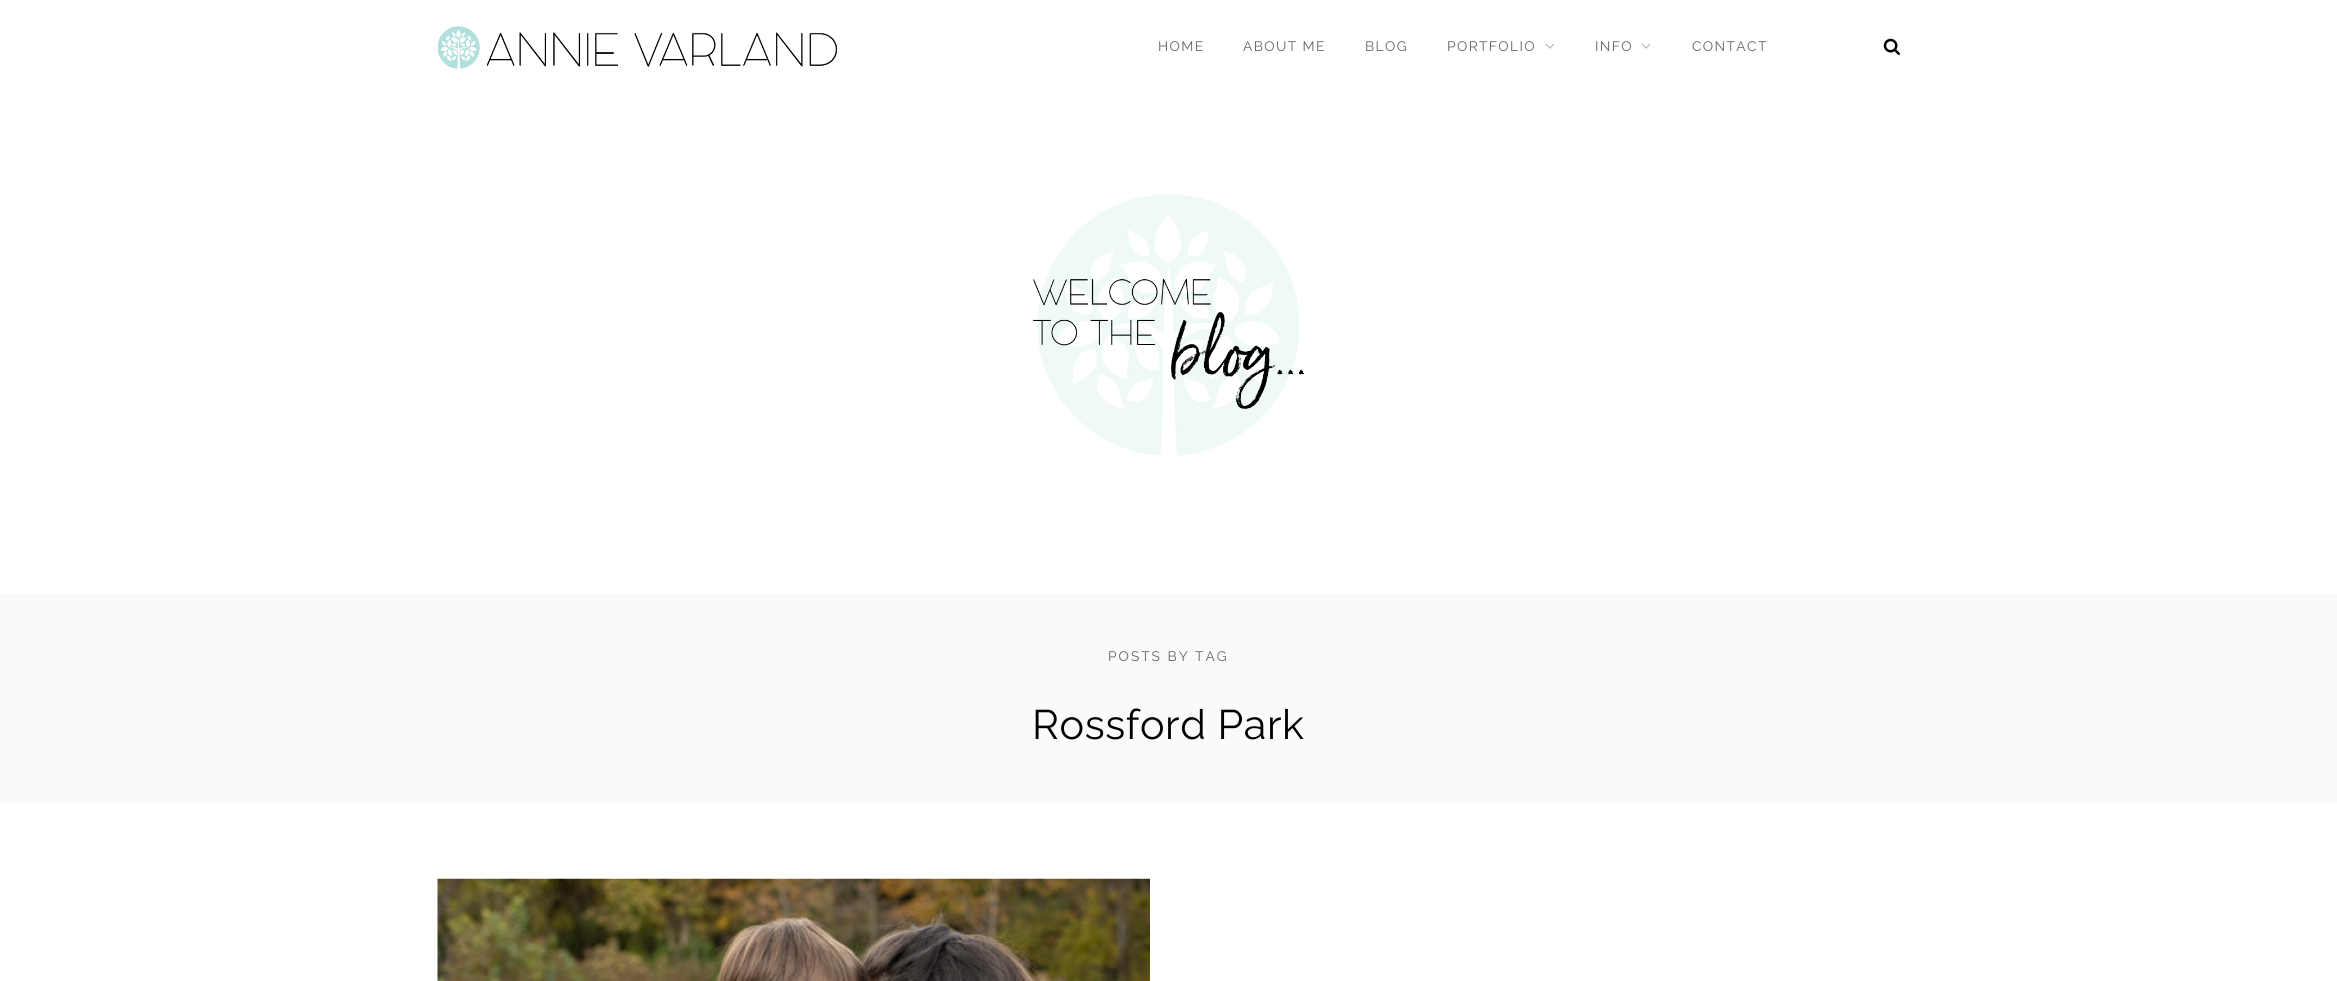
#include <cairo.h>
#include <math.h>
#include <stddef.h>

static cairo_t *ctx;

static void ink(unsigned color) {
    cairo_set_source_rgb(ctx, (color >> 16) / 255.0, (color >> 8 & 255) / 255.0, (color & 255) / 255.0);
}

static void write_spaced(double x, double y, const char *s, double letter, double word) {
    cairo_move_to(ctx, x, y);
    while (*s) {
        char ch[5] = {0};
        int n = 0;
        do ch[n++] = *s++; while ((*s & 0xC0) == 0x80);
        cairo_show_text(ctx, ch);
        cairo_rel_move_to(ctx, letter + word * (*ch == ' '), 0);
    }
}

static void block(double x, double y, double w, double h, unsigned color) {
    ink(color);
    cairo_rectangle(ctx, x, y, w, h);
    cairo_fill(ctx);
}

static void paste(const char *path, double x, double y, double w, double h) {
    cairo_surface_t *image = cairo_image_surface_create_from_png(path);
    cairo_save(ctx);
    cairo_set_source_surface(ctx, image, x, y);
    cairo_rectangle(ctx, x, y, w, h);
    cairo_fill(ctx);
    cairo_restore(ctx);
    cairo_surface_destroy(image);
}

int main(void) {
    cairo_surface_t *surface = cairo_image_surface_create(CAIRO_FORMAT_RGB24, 2337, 981);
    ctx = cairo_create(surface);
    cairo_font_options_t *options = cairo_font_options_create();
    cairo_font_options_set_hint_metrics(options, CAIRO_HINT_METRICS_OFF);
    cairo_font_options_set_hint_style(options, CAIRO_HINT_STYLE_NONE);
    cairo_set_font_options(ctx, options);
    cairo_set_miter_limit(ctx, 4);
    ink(0xffffff);
    cairo_paint(ctx);
    paste("pic1.png", 438, 26, 400, 43);
    cairo_select_font_face(ctx, "Raleway", CAIRO_FONT_SLANT_NORMAL, CAIRO_FONT_WEIGHT_NORMAL);
    cairo_set_font_size(ctx, 13.75);
    ink(0x666666);
    write_spaced(1158, 51, "HOME", 1.4, 0);
    write_spaced(1243, 51, "ABOUT ME", 1.4, 0);
    write_spaced(1365, 51, "BLOG", 1.4, 0);
    write_spaced(1447, 51, "PORTFOLIO", 1.4, 0);
    paste("pic2.png", 1545, 44, 9, 5);
    write_spaced(1595, 51, "INFO", 1.4, 0);
    paste("pic3.png", 1642, 44, 9, 5);
    write_spaced(1692, 51, "CONTACT", 1.4, 0);
    paste("pic4.png", 1883, 38, 17, 17);
    paste("pic5.png", 1033, 194, 272, 262);
    block(0, 594, 2337, 210, 0xfafafa);
    ink(0x666666);
    write_spaced(1108, 661, "POSTS BY TAG", 2, 0);
    cairo_set_font_size(ctx, 41.25);
    ink(0x000000);
    write_spaced(1032, 739, "Rossford Park", 0.6, 0);
    paste("pic6.png", 437, 878, 713, 103);
    cairo_surface_write_to_png(surface, "screenshot.png");
    cairo_font_options_destroy(options);
    cairo_destroy(ctx);
    cairo_surface_destroy(surface);
    return 0;
}
